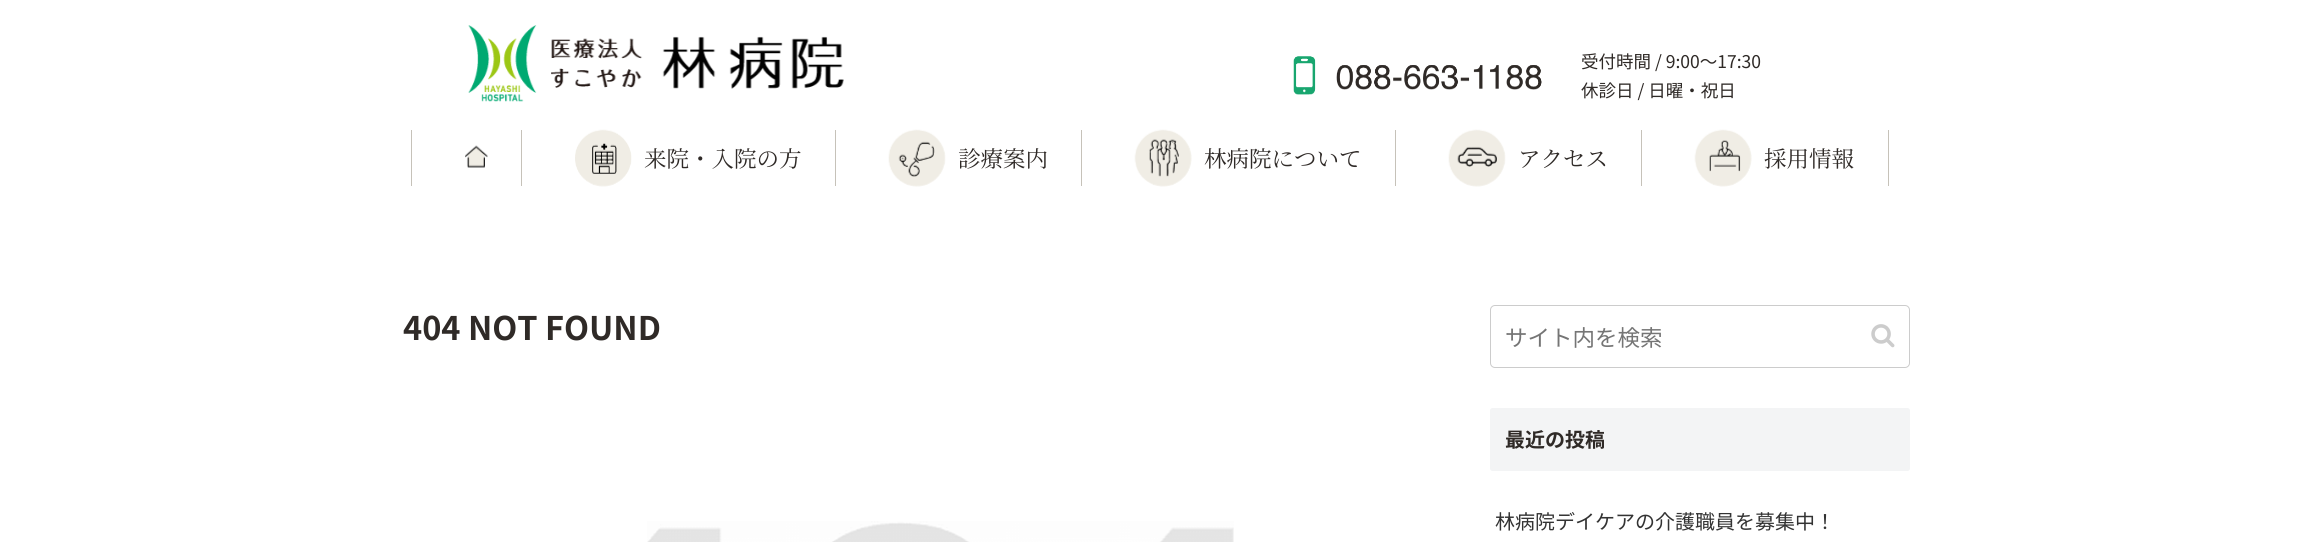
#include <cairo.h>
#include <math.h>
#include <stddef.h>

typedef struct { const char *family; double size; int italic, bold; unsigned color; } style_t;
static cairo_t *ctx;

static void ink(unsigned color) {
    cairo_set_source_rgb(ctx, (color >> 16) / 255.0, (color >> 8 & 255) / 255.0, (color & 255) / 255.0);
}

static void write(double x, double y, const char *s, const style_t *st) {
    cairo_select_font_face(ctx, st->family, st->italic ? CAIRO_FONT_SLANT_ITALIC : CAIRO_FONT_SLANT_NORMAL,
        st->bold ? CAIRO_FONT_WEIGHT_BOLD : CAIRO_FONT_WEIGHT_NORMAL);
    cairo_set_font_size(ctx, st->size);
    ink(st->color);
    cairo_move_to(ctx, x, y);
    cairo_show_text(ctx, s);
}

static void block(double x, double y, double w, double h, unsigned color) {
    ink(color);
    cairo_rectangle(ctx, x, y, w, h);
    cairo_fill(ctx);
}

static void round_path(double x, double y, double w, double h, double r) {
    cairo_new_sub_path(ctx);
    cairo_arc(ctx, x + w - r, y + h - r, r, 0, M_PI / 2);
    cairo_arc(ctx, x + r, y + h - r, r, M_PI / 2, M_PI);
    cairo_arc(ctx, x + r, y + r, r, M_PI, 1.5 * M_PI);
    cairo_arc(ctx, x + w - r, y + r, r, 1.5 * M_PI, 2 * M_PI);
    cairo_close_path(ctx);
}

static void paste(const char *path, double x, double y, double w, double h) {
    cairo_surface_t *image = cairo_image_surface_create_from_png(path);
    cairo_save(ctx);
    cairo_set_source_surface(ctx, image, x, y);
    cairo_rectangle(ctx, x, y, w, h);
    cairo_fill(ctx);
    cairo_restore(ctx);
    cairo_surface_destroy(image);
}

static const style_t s1 = {"Noto Sans JP", 17.5, 0, 0, 0x2f2a27};
static const style_t s2 = {"Noto Serif JP", 22.5, 0, 0, 0x2f2a27};
static const style_t s3 = {"Noto Sans JP", 32.5, 0, 1, 0x2f2a27};
static const style_t s4 = {"Noto Sans JP", 22.5, 0, 0, 0x757575};
static const style_t s5 = {"Noto Sans JP", 20, 0, 1, 0x2f2a27};
static const style_t s6 = {"Noto Sans JP", 20, 0, 0, 0x333333};

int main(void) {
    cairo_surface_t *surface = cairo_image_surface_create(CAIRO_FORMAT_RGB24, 2300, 542);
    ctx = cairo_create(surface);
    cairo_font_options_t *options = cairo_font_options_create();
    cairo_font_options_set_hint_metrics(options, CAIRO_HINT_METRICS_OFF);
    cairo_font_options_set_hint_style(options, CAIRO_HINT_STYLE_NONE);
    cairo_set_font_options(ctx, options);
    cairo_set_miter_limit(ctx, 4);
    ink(0xffffff);
    cairo_paint(ctx);
    paste("pic1.png", 468, 25, 376, 77);
    paste("pic2.png", 1293, 56, 249, 39);
    write(1581, 68, "受付時間 / 9:00～17:30", &s1);
    write(1581, 97, "休診日 / 日曜・祝日", &s1);
    block(521, 130, 1, 56, 0xc6c2b9);
    block(411, 130, 1, 56, 0xc6c2b9);
    paste("pic3.png", 465, 145, 23, 23);
    block(835, 130, 1, 56, 0xc6c2b9);
    paste("pic4.png", 575, 129, 57, 58);
    write(644, 167, "来院・入院の方", &s2);
    block(1081, 130, 1, 56, 0xc6c2b9);
    paste("pic5.png", 888, 129, 58, 58);
    write(958, 167, "診療案内", &s2);
    block(1395, 130, 1, 56, 0xc6c2b9);
    paste("pic6.png", 1134, 129, 58, 58);
    write(1204, 167, "林病院について", &s2);
    block(1641, 130, 1, 56, 0xc6c2b9);
    paste("pic7.png", 1448, 129, 58, 58);
    write(1518, 167, "アクセス", &s2);
    block(1888, 130, 1, 56, 0xc6c2b9);
    paste("pic8.png", 1694, 129, 58, 58);
    write(1764, 167, "採用情報", &s2);
    write(403, 340, "404 NOT FOUND", &s3);
    paste("pic9.png", 647, 521, 587, 21);
    round_path(1490.5, 305.5, 419, 62, 4.5);
    ink(0xcccccc);
    cairo_set_line_width(ctx, 1);
    cairo_stroke(ctx);
    write(1505, 346, "サイト内を検索", &s4);
    paste("pic10.png", 1871, 324, 24, 24);
    ink(0xf3f4f5);
    round_path(1490, 408, 420, 63, 2.5);
    cairo_fill(ctx);
    write(1505, 447, "最近の投稿", &s5);
    write(1495, 529, "林病院デイケアの介護職員を募集中！", &s6);
    cairo_surface_write_to_png(surface, "screenshot.png");
    cairo_font_options_destroy(options);
    cairo_destroy(ctx);
    cairo_surface_destroy(surface);
    return 0;
}
